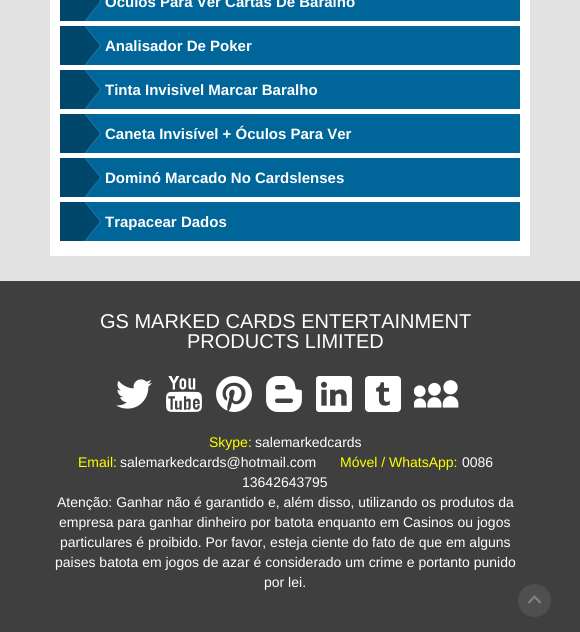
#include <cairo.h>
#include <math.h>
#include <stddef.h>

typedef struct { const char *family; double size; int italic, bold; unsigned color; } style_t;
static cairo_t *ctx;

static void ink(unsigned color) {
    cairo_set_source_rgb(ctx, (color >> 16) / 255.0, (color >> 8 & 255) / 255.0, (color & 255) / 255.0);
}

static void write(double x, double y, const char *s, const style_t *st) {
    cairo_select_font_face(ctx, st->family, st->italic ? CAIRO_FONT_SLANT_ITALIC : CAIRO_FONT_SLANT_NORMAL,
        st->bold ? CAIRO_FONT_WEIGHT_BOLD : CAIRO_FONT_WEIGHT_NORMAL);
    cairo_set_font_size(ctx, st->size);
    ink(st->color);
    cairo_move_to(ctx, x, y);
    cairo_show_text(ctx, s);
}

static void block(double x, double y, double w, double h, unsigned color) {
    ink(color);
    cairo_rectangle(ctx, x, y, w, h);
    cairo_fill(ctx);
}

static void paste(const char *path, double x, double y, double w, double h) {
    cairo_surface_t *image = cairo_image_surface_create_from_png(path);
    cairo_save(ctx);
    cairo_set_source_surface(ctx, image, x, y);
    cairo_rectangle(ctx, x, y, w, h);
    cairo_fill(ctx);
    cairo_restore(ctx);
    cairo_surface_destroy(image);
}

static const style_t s1 = {"Liberation Sans", 15, 0, 1, 0xffffff};
static const style_t s2 = {"Liberation Sans", 20, 0, 0, 0xffffff};
static const style_t s3 = {"Liberation Sans", 14, 0, 0, 0xffff00};
static const style_t s4 = {"Liberation Sans", 14, 0, 0, 0xffffff};

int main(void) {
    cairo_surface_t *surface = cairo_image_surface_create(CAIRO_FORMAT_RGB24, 580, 632);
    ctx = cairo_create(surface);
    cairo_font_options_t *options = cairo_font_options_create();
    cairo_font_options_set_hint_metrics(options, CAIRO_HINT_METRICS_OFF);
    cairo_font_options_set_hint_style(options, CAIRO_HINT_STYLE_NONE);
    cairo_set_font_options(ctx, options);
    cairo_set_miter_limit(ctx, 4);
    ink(0xe2e2e2);
    cairo_paint(ctx);
    block(50, 0, 480, 256, 0xffffff);
    block(60, 0, 460, 21, 0x006699);
    paste("pic1.png", 60, 0, 41, 21);
    write(105, 7, "Oculos Para Ver Cartas De Baralho", &s1);
    block(60, 26, 460, 39, 0x006699);
    paste("pic2.png", 60, 26, 41, 39);
    write(105, 51, "Analisador De Poker", &s1);
    block(60, 70, 460, 39, 0x006699);
    paste("pic2.png", 60, 70, 41, 39);
    write(105, 95, "Tinta Invisivel Marcar Baralho", &s1);
    block(60, 114, 460, 39, 0x006699);
    paste("pic2.png", 60, 114, 41, 39);
    write(105, 139, "Caneta Invisível + Óculos Para Ver", &s1);
    block(60, 158, 460, 39, 0x006699);
    paste("pic2.png", 60, 158, 41, 39);
    write(105, 183, "Dominó Marcado No Cardslenses", &s1);
    block(60, 202, 460, 39, 0x006699);
    paste("pic2.png", 60, 202, 41, 39);
    write(105, 227, "Trapacear Dados", &s1);
    block(0, 281, 580, 351, 0x3f3f3f);
    write(100, 328, "GS MARKED CARDS ENTERTAINMENT", &s2);
    write(187, 348, "PRODUCTS LIMITED", &s2);
    paste("pic3.png", 116, 379, 36, 30);
    paste("pic4.png", 166, 376, 36, 36);
    paste("pic5.png", 216, 376, 36, 36);
    paste("pic6.png", 266, 376, 36, 36);
    paste("pic7.png", 316, 376, 36, 36);
    paste("pic8.png", 365, 376, 36, 36);
    paste("pic9.png", 414, 380, 45, 28);
    write(209, 447, "Skype:", &s3);
    write(255, 447, "salemarkedcards", &s4);
    write(78, 467, "Email:", &s3);
    write(120, 467, "salemarkedcards@hotmail.com", &s4);
    write(340, 467, "Móvel / WhatsApp:", &s3);
    write(462, 467, "0086", &s4);
    write(242, 487, "13642643795", &s4);
    write(57, 507, "Atenção: Ganhar não é garantido e, além disso, utilizando os produtos da", &s4);
    write(59, 527, "empresa para ganhar dinheiro por batota enquanto em Casinos ou jogos", &s4);
    write(60, 547, "particulares é proibido. Por favor, esteja ciente do fato de que em alguns", &s4);
    write(55, 567, "paises batota em jogos de azar é considerado um crime e portanto punido", &s4);
    write(264, 587, "por lei.", &s4);
    paste("pic10.png", 518, 584, 33, 33);
    cairo_surface_write_to_png(surface, "screenshot.png");
    cairo_font_options_destroy(options);
    cairo_destroy(ctx);
    cairo_surface_destroy(surface);
    return 0;
}
